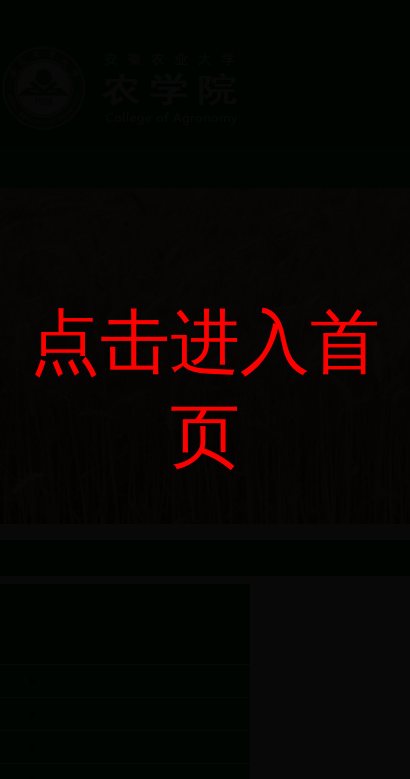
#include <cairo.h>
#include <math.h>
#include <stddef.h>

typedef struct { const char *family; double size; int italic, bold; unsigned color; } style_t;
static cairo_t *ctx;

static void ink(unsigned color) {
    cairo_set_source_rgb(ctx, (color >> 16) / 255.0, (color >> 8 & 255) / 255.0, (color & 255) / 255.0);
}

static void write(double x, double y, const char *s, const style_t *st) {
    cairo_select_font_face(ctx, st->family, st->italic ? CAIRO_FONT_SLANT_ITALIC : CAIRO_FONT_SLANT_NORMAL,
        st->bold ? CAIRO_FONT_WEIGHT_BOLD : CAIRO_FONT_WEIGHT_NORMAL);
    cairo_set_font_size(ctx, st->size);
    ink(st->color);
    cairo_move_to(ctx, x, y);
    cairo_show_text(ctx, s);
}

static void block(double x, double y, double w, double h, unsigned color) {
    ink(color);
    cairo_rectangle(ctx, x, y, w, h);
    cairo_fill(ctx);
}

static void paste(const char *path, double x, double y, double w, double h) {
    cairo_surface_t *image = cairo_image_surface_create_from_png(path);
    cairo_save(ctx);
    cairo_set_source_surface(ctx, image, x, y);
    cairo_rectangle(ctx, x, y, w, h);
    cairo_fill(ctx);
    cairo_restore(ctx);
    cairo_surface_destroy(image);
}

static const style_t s1 = {"WenQuanYi Zen Hei Medium", 70, 0, 0, 0xff0000};

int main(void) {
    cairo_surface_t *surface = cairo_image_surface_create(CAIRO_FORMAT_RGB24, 410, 779);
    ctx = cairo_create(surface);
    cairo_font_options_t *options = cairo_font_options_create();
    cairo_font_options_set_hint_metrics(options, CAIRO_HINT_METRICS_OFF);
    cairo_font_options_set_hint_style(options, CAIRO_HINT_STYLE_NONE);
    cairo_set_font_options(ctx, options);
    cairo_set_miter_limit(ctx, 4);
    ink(0x080808);
    cairo_paint(ctx);
    paste("pic1.png", 0, 0, 410, 146);
    paste("pic2.png", 2, 46, 236, 84);
    block(0, 146, 410, 42, 0x000501);
    paste("pic3.png", 0, 188, 410, 336);
    write(30, 366, "点击进入首", &s1);
    write(170, 460, "页", &s1);
    block(0, 540, 410, 36, 0x000401);
    block(0, 584, 250, 80, 0x000401);
    block(0, 665, 250, 32, 0x000501);
    paste("pic4.png", 30, 677, 5, 8);
    block(0, 698, 250, 32, 0x000501);
    paste("pic4.png", 30, 710, 5, 8);
    block(0, 731, 250, 32, 0x000501);
    paste("pic4.png", 30, 743, 5, 8);
    block(0, 764, 250, 15, 0x000501);
    block(30, 776, 4, 3, 0x010101);
    cairo_surface_write_to_png(surface, "screenshot.png");
    cairo_font_options_destroy(options);
    cairo_destroy(ctx);
    cairo_surface_destroy(surface);
    return 0;
}
